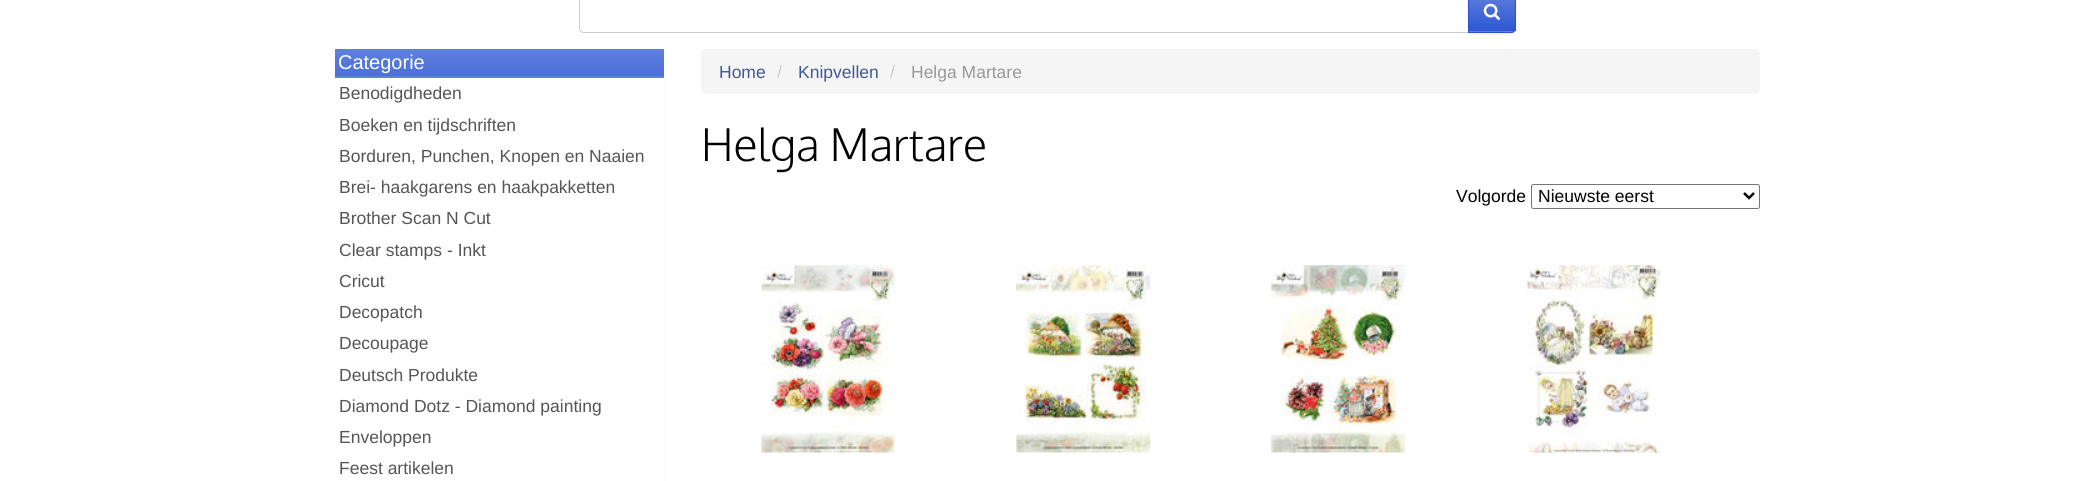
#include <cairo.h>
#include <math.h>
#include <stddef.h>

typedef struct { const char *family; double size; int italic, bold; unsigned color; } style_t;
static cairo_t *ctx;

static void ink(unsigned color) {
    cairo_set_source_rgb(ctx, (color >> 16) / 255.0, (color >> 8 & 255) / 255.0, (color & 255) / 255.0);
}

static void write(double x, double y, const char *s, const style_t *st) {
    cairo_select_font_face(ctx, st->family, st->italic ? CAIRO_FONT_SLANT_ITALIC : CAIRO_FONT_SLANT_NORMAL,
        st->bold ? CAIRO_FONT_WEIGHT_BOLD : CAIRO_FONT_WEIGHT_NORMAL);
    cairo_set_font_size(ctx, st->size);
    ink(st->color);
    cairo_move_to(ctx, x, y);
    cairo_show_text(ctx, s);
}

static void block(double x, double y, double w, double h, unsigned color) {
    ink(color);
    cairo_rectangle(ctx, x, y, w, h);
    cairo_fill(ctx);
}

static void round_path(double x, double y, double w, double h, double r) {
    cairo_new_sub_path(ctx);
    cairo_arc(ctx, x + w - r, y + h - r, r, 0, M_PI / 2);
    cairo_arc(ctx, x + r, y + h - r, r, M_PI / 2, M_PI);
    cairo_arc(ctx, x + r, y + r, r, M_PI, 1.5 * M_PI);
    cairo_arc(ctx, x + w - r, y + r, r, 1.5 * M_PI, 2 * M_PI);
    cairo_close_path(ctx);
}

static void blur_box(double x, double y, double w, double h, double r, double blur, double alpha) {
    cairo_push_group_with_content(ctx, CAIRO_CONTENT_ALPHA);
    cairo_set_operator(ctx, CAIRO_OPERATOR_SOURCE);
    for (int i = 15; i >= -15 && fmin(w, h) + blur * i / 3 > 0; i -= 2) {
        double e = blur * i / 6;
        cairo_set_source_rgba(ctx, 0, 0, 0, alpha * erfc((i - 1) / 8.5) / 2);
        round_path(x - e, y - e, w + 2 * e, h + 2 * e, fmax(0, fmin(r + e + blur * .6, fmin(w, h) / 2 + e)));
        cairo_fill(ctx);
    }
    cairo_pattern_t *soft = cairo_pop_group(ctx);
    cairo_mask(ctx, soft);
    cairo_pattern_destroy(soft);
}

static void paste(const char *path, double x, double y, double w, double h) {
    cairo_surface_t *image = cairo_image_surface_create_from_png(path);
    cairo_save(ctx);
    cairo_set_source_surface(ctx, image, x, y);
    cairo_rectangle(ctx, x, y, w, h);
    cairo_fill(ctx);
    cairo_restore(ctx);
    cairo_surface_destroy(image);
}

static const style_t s1 = {"Liberation Sans", 20, 0, 0, 0xffffff};
static const style_t s2 = {"Liberation Sans", 17.5, 0, 0, 0x555555};
static const style_t s3 = {"Liberation Sans", 17.5, 0, 0, 0x405894};
static const style_t s4 = {"Liberation Sans", 17.5, 0, 0, 0xcccccc};
static const style_t s5 = {"Liberation Sans", 17.5, 0, 0, 0x999999};
static const style_t s6 = {"Oxygen Light", 45, 0, 0, 0x000000};
static const style_t s7 = {"Liberation Sans", 17.5, 0, 0, 0x000000};

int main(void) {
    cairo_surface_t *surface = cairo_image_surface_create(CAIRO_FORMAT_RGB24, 2095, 481);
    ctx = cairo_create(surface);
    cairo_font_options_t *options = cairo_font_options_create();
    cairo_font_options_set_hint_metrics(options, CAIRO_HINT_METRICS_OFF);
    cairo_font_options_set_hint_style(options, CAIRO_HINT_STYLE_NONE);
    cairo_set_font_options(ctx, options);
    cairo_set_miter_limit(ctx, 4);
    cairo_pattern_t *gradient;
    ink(0xffffff);
    cairo_paint(ctx);
    cairo_new_path(ctx);
    cairo_move_to(ctx, 584, -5.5);
    cairo_line_to(ctx, 1468.5, -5.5);
    cairo_line_to(ctx, 1468.5, 32.5);
    cairo_line_to(ctx, 584, 32.5);
    cairo_curve_to(ctx, 581.5, 32.5, 579.5, 30.5, 579.5, 28);
    cairo_line_to(ctx, 579.5, -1);
    cairo_curve_to(ctx, 579.5, -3.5, 581.5, -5.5, 584, -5.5);
    cairo_close_path(ctx);
    ink(0xcccccc);
    cairo_set_line_width(ctx, 1);
    cairo_stroke(ctx);
    ink(0x000000);
    blur_box(1468, -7, 48, 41, 5, 0.5, 0.07);
    ink(0x6080dd);
    cairo_new_path(ctx);
    cairo_move_to(ctx, 1468, -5);
    cairo_line_to(ctx, 1511, -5);
    cairo_curve_to(ctx, 1514, -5, 1516, -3, 1516, 0);
    cairo_line_to(ctx, 1516, 28);
    cairo_curve_to(ctx, 1516, 31, 1514, 33, 1511, 33);
    cairo_line_to(ctx, 1468, 33);
    cairo_close_path(ctx);
    cairo_fill(ctx);
    gradient = cairo_pattern_create_linear(1492, -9, 1492, 31);
    cairo_pattern_add_color_stop_rgba(gradient, 0, 0.376, 0.502, 0.867, 1);
    cairo_pattern_add_color_stop_rgba(gradient, 1, 0.18, 0.345, 0.824, 1);
    cairo_set_source(ctx, gradient);
    cairo_pattern_destroy(gradient);
    cairo_rectangle(ctx, 1469, 0, 47, 31);
    cairo_fill(ctx);
    cairo_new_path(ctx);
    cairo_move_to(ctx, 1468.5, -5.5);
    cairo_line_to(ctx, 1511, -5.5);
    cairo_curve_to(ctx, 1513.5, -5.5, 1515.5, -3.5, 1515.5, -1);
    cairo_line_to(ctx, 1515.5, 28);
    cairo_curve_to(ctx, 1515.5, 30.5, 1513.5, 32.5, 1511, 32.5);
    cairo_line_to(ctx, 1468.5, 32.5);
    cairo_close_path(ctx);
    ink(0x2b54ca);
    cairo_stroke(ctx);
    paste("pic1.png", 1483, 3, 17, 17);
    block(335, 76, 329, 2, 0x6080dd);
    gradient = cairo_pattern_create_linear(499, 49, 499, 76);
    cairo_pattern_add_color_stop_rgba(gradient, 0, 0.376, 0.502, 0.867, 1);
    cairo_pattern_add_color_stop_rgba(gradient, 1, 0.294, 0.435, 0.851, 1);
    cairo_set_source(ctx, gradient);
    cairo_pattern_destroy(gradient);
    cairo_rectangle(ctx, 335, 49, 329, 27);
    cairo_fill(ctx);
    write(338, 69, "Categorie", &s1);
    ink(0x000000);
    blur_box(335, 79, 329, 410, 5, 1, 0.07);
    block(335, 78, 329, 403, 0xffffff);
    write(339, 99, "Benodigdheden", &s2);
    write(339, 131, "Boeken en tijdschriften", &s2);
    write(339, 162, "Borduren, Punchen, Knopen en Naaien", &s2);
    write(339, 193, "Brei- haakgarens en haakpakketten", &s2);
    write(339, 224, "Brother Scan N Cut", &s2);
    write(339, 256, "Clear stamps - Inkt", &s2);
    write(339, 287, "Cricut", &s2);
    write(339, 318, "Decopatch", &s2);
    write(339, 349, "Decoupage", &s2);
    write(339, 381, "Deutsch Produkte", &s2);
    write(339, 412, "Diamond Dotz - Diamond painting", &s2);
    write(339, 443, "Enveloppen", &s2);
    write(339, 474, "Feest artikelen", &s2);
    ink(0xf5f5f5);
    round_path(701, 49, 1059, 45, 5);
    cairo_fill(ctx);
    write(719, 78, "Home", &s3);
    write(777, 78, "/", &s4);
    write(798, 78, "Knipvellen", &s3);
    write(890, 78, "/", &s4);
    write(911, 78, "Helga Martare", &s5);
    write(701, 161, "Helga Martare", &s6);
    write(1456, 202, "Volgorde", &s7);
    round_path(1531.5, 184.5, 228, 24, 2);
    ink(0x767676);
    cairo_stroke(ctx);
    cairo_new_path(ctx);
    cairo_move_to(ctx, 1744, 193);
    cairo_line_to(ctx, 1749, 198);
    cairo_line_to(ctx, 1754, 193);
    ink(0x000000);
    cairo_set_line_width(ctx, 2.5);
    cairo_stroke(ctx);
    write(1538, 202, "Nieuwste eerst", &s7);
    paste("pic2.png", 761, 265, 134, 188);
    paste("pic3.png", 1016, 265, 134, 188);
    paste("pic4.png", 1271, 265, 134, 188);
    paste("pic5.png", 1527, 265, 133, 188);
    cairo_surface_write_to_png(surface, "screenshot.png");
    cairo_font_options_destroy(options);
    cairo_destroy(ctx);
    cairo_surface_destroy(surface);
    return 0;
}
